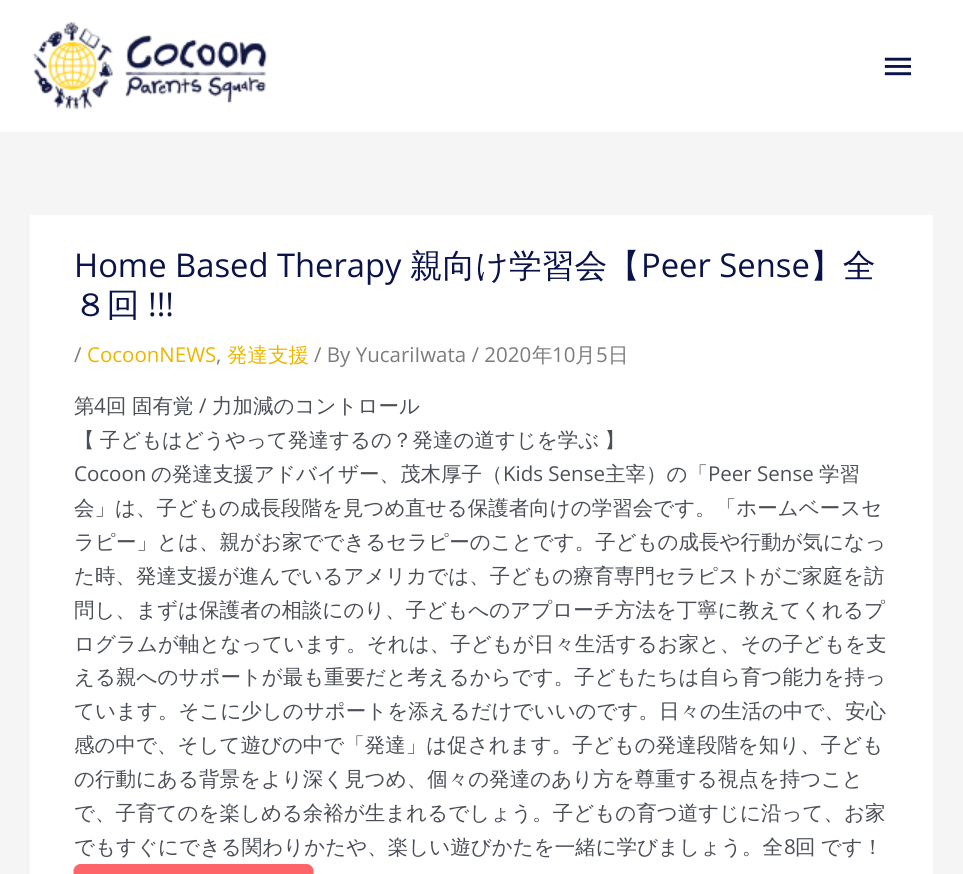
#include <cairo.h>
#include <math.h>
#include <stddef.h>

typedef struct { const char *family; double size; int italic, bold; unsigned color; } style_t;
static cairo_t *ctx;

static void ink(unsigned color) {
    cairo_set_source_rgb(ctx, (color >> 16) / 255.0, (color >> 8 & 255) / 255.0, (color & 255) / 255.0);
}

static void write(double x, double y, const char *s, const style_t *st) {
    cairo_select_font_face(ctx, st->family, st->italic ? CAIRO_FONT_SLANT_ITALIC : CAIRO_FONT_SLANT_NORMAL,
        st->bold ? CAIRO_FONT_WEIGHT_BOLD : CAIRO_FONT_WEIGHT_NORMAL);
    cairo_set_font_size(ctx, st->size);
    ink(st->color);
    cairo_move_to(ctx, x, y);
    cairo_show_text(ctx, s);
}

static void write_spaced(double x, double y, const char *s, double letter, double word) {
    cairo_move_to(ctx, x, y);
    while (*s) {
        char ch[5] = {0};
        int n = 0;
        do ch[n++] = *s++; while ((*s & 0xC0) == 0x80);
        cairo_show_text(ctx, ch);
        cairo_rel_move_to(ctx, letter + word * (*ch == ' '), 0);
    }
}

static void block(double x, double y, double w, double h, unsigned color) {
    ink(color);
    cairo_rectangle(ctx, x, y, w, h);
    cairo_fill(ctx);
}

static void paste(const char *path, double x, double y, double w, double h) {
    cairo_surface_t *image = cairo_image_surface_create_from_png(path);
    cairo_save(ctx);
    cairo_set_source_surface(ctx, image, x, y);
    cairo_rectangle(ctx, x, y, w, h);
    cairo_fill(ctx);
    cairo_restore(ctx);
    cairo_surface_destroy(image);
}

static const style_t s1 = {"Open Sans", 32.75, 0, 0, 0x0a1349};
static const style_t s2 = {"WenQuanYi Zen Hei Medium", 32.75, 0, 0, 0x0a1349};
static const style_t s3 = {"Open Sans", 20.5, 0, 0, 0x7c7c7c};
static const style_t s4 = {"Open Sans", 20.5, 0, 0, 0xecb600};
static const style_t s5 = {"WenQuanYi Zen Hei Medium", 20.5, 0, 0, 0xecb600};
static const style_t s6 = {"WenQuanYi Zen Hei Medium", 20.5, 0, 0, 0x7c7c7c};
static const style_t s7 = {"WenQuanYi Zen Hei Medium", 20.5, 0, 0, 0x4b4f58};
static const style_t s8 = {"Open Sans", 20.5, 0, 0, 0x4b4f58};

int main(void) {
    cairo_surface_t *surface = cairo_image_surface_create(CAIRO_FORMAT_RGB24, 963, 874);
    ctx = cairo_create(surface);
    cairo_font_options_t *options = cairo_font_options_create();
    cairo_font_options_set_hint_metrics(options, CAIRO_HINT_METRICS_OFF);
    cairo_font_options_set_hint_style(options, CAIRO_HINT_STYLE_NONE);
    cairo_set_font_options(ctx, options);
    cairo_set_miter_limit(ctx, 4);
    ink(0xf5f5f5);
    cairo_paint(ctx);
    block(0, 0, 963, 132, 0xffffff);
    paste("pic1.png", 32, 22, 236, 88);
    paste("pic2.png", 884, 57, 28, 19);
    block(30, 215, 903, 659, 0xffffff);
    write(74, 277, "Home Based Therapy", &s1);
    write(410, 277, "親向け学習会【", &s2);
    write(641, 277, "Peer Sense", &s1);
    write(810, 277, "】全", &s2);
    write(74, 316, "８回", &s2);
    write(148, 316, "!!!", &s1);
    write(74, 362, "/", &s3);
    write(87, 362, "CocoonNEWS", &s4);
    write(216, 362, ",", &s3);
    write(227, 362, "発達支援", &s5);
    write(314, 362, "/ By YucariIwata / 2020", &s3);
    write(532, 362, "年", &s6);
    write(552, 362, "10", &s3);
    write(575, 362, "月", &s6);
    write(596, 362, "5", &s3);
    write(608, 362, "日", &s6);
    write(74, 413, "第", &s7);
    write(94, 413, "4", &s8);
    write(106, 413, "回", &s7);
    write(132, 413, "固有覚", &s7);
    write(199, 413, "/", &s8);
    write(212, 413, "力加減のコントロール", &s7);
    write_spaced(74, 447, "【 子どもはどうやって発達するの？発達の道すじを学ぶ 】", 0, -1);
    write(74, 481, "Cocoon", &s8);
    write(151, 481, "の発達支援アドバイザー、茂木厚子（", &s7);
    write(503, 481, "Kids Sense", &s8);
    write(605, 481, "主宰）の「", &s7);
    write(708, 481, "Peer Sense", &s8);
    write(819, 481, "学習", &s7);
    write(74, 515, "会」は、子どもの成長段階を見つめ直せる保護者向けの学習会です。「ホームベースセ", &s7);
    write(74, 549, "ラピー」とは、親がお家でできるセラピーのことです。子どもの成長や行動が気になっ", &s7);
    write(74, 583, "た時、発達支援が進んでいるアメリカでは、子どもの療育専門セラピストがご家庭を訪", &s7);
    write(74, 617, "問し、まずは保護者の相談にのり、子どもへのアプローチ方法を丁寧に教えてくれるプ", &s7);
    write(74, 651, "ログラムが軸となっています。それは、子どもが日々生活するお家と、その子どもを支", &s7);
    write(74, 684, "える親へのサポートが最も重要だと考えるからです。子どもたちは自ら育つ能力を持っ", &s7);
    write(74, 718, "ています。そこに少しのサポートを添えるだけでいいのです。日々の生活の中で、安心", &s7);
    write(74, 752, "感の中で、そして遊びの中で「発達」は促されます。子どもの発達段階を知り、子ども", &s7);
    write(74, 786, "の行動にある背景をより深く見つめ、個々の発達のあり方を尊重する視点を持つこと", &s7);
    write(74, 820, "で、子育てのを楽しめる余裕が生まれるでしょう。子どもの育つ道すじに沿って、お家", &s7);
    write(74, 854, "でもすぐにできる関わりかたや、楽しい遊びかたを一緒に学びましょう。全", &s7);
    write(784, 854, "8", &s8);
    cairo_select_font_face(ctx, "WenQuanYi Zen Hei Medium", CAIRO_FONT_SLANT_NORMAL, CAIRO_FONT_WEIGHT_NORMAL);
    write_spaced(795, 854, "回 です！", 0, -1);
    paste("pic3.png", 73, 864, 241, 10);
    cairo_surface_write_to_png(surface, "screenshot.png");
    cairo_font_options_destroy(options);
    cairo_destroy(ctx);
    cairo_surface_destroy(surface);
    return 0;
}
